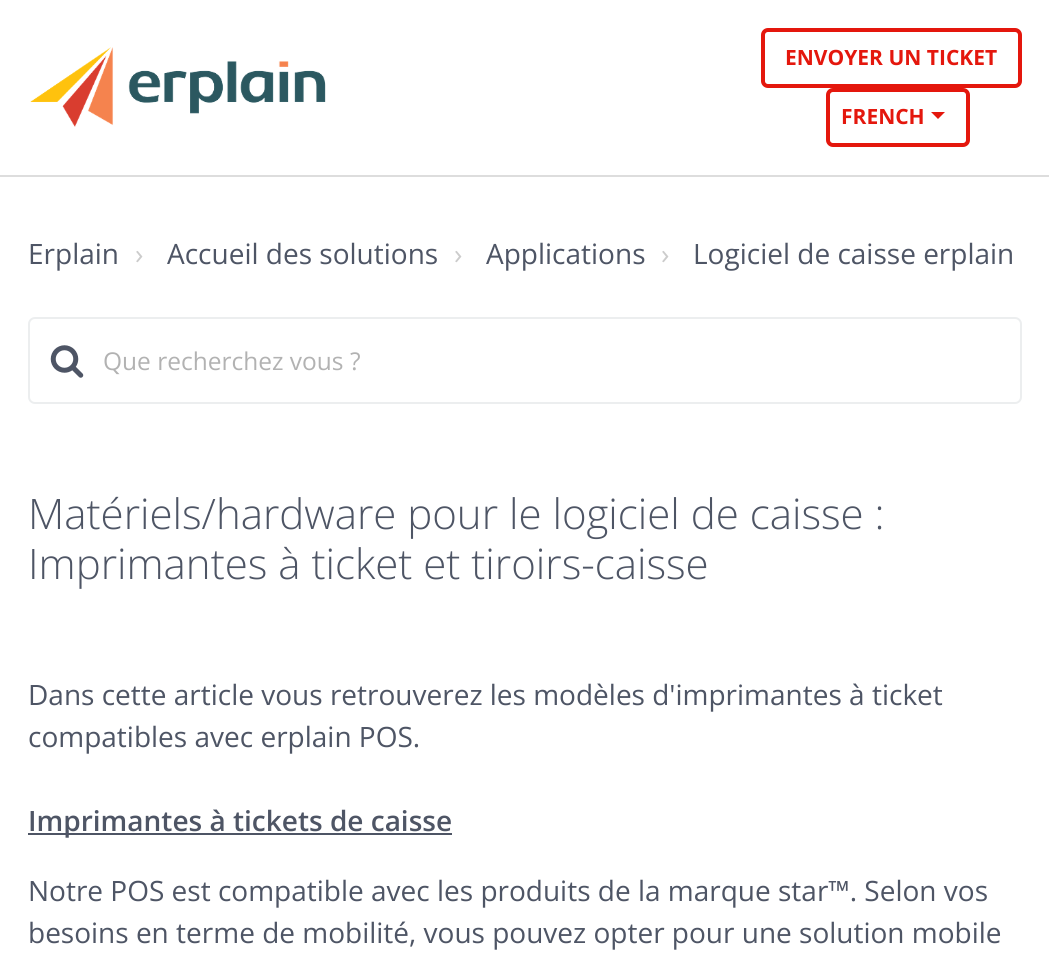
#include <cairo.h>
#include <math.h>
#include <stddef.h>

typedef struct { const char *family; double size; int italic, bold; unsigned color; } style_t;
static cairo_t *ctx;

static void ink(unsigned color) {
    cairo_set_source_rgb(ctx, (color >> 16) / 255.0, (color >> 8 & 255) / 255.0, (color & 255) / 255.0);
}

static void write(double x, double y, const char *s, const style_t *st) {
    cairo_select_font_face(ctx, st->family, st->italic ? CAIRO_FONT_SLANT_ITALIC : CAIRO_FONT_SLANT_NORMAL,
        st->bold ? CAIRO_FONT_WEIGHT_BOLD : CAIRO_FONT_WEIGHT_NORMAL);
    cairo_set_font_size(ctx, st->size);
    ink(st->color);
    cairo_move_to(ctx, x, y);
    cairo_show_text(ctx, s);
}

static void block(double x, double y, double w, double h, unsigned color) {
    ink(color);
    cairo_rectangle(ctx, x, y, w, h);
    cairo_fill(ctx);
}

static void round_path(double x, double y, double w, double h, double r) {
    cairo_new_sub_path(ctx);
    cairo_arc(ctx, x + w - r, y + h - r, r, 0, M_PI / 2);
    cairo_arc(ctx, x + r, y + h - r, r, M_PI / 2, M_PI);
    cairo_arc(ctx, x + r, y + r, r, M_PI, 1.5 * M_PI);
    cairo_arc(ctx, x + w - r, y + r, r, 1.5 * M_PI, 2 * M_PI);
    cairo_close_path(ctx);
}

static void paste(const char *path, double x, double y, double w, double h) {
    cairo_surface_t *image = cairo_image_surface_create_from_png(path);
    cairo_save(ctx);
    cairo_set_source_surface(ctx, image, x, y);
    cairo_rectangle(ctx, x, y, w, h);
    cairo_fill(ctx);
    cairo_restore(ctx);
    cairo_surface_destroy(image);
}

static const style_t s1 = {"Open Sans", 21, 0, 1, 0xe4170d};
static const style_t s2 = {"Open Sans", 28, 0, 0, 0x4e5565};
static const style_t s3 = {"Open Sans", 28, 0, 0, 0xcccccc};
static const style_t s4 = {"Open Sans", 24.5, 0, 0, 0xb2b2b2};
static const style_t s5 = {"Open Sans Light", 42, 0, 0, 0x4e5565};
static const style_t s6 = {"Open Sans SemiBold", 28, 0, 0, 0x4e5565};

int main(void) {
    cairo_surface_t *surface = cairo_image_surface_create(CAIRO_FORMAT_RGB24, 1049, 971);
    ctx = cairo_create(surface);
    cairo_font_options_t *options = cairo_font_options_create();
    cairo_font_options_set_hint_metrics(options, CAIRO_HINT_METRICS_OFF);
    cairo_font_options_set_hint_style(options, CAIRO_HINT_STYLE_NONE);
    cairo_set_font_options(ctx, options);
    cairo_set_miter_limit(ctx, 4);
    ink(0xffffff);
    cairo_paint(ctx);
    block(0, 175, 1049, 2, 0xdddddd);
    paste("pic1.png", 30, 47, 296, 80);
    round_path(763, 30, 257, 56, 5);
    ink(0xe4170d);
    cairo_set_line_width(ctx, 4);
    cairo_stroke(ctx);
    write(785, 65, "ENVOYER UN TICKET", &s1);
    round_path(828, 90, 140, 55, 5);
    cairo_stroke(ctx);
    write(841, 124, "FRENCH", &s1);
    cairo_new_path(ctx);
    cairo_move_to(ctx, 931, 112);
    cairo_line_to(ctx, 945, 112);
    cairo_line_to(ctx, 938, 119);
    cairo_close_path(ctx);
    cairo_fill(ctx);
    write(28, 264, "Erplain", &s2);
    write(135, 264, "›", &s3);
    write(167, 264, "Accueil des solutions", &s2);
    write(454, 264, "›", &s3);
    write(486, 264, "Applications", &s2);
    write(661, 264, "›", &s3);
    write(693, 264, "Logiciel de caisse erplain", &s2);
    round_path(29, 318, 992, 85, 6);
    ink(0xeceeef);
    cairo_set_line_width(ctx, 2);
    cairo_stroke(ctx);
    paste("pic2.png", 50, 345, 34, 33);
    write(103, 370, "Que recherchez vous ?", &s4);
    write(28, 529, "Matériels/hardware pour le logiciel de caisse :", &s5);
    write(28, 579, "Imprimantes à ticket et tiroirs-caisse", &s5);
    write(28, 705, "Dans cette article vous retrouverez les modèles d'imprimantes à ticket", &s2);
    write(28, 747, "compatibles avec erplain POS.", &s2);
    block(28, 833, 424, 2, 0x4e5565);
    write(28, 831, "Imprimantes à tickets de caisse", &s6);
    write(28, 901, "Notre POS est compatible avec les produits de la marque star™. Selon vos", &s2);
    write(28, 943, "besoins en terme de mobilité, vous pouvez opter pour une solution mobile", &s2);
    cairo_surface_write_to_png(surface, "screenshot.png");
    cairo_font_options_destroy(options);
    cairo_destroy(ctx);
    cairo_surface_destroy(surface);
    return 0;
}
